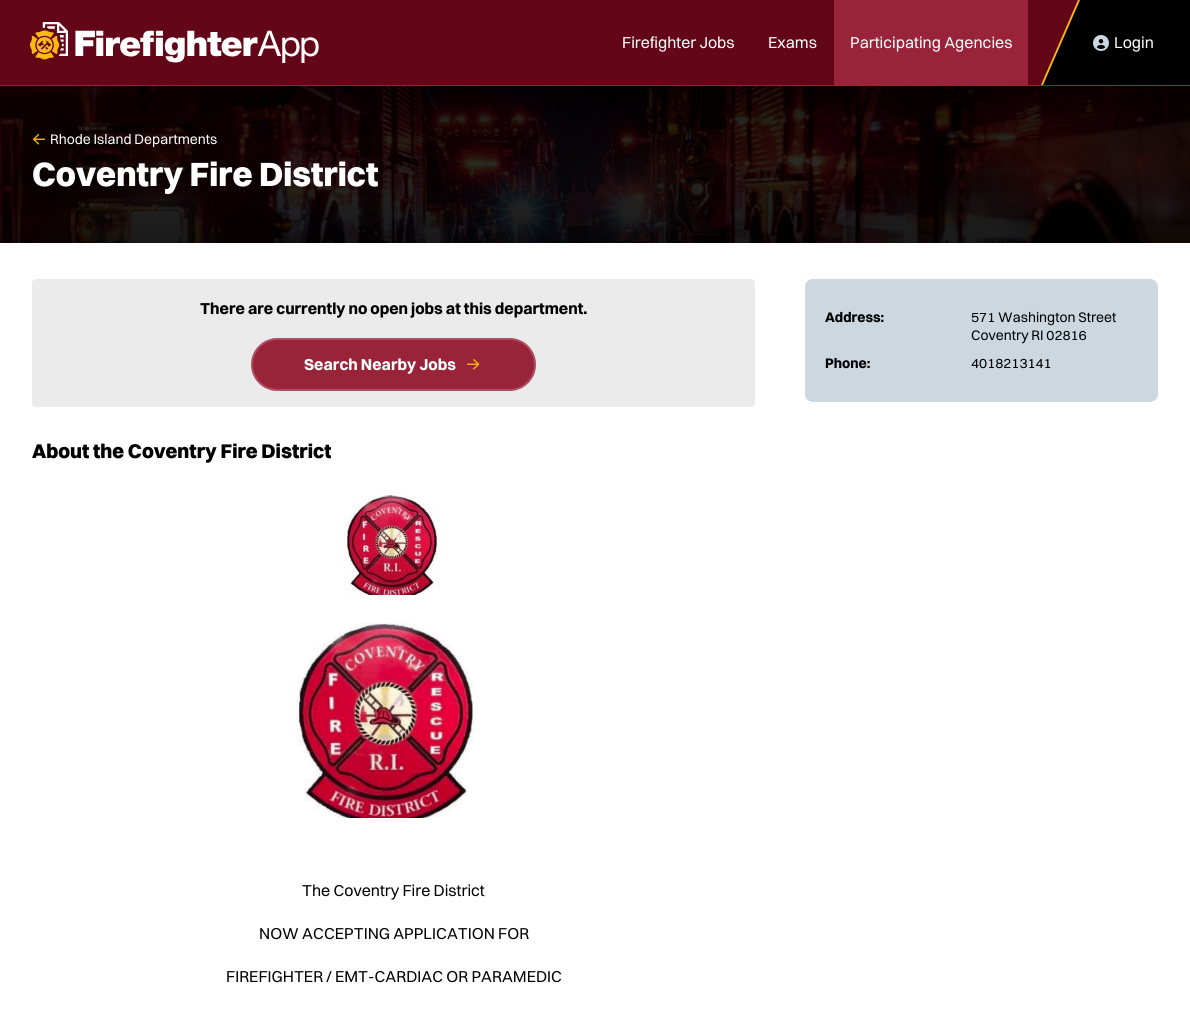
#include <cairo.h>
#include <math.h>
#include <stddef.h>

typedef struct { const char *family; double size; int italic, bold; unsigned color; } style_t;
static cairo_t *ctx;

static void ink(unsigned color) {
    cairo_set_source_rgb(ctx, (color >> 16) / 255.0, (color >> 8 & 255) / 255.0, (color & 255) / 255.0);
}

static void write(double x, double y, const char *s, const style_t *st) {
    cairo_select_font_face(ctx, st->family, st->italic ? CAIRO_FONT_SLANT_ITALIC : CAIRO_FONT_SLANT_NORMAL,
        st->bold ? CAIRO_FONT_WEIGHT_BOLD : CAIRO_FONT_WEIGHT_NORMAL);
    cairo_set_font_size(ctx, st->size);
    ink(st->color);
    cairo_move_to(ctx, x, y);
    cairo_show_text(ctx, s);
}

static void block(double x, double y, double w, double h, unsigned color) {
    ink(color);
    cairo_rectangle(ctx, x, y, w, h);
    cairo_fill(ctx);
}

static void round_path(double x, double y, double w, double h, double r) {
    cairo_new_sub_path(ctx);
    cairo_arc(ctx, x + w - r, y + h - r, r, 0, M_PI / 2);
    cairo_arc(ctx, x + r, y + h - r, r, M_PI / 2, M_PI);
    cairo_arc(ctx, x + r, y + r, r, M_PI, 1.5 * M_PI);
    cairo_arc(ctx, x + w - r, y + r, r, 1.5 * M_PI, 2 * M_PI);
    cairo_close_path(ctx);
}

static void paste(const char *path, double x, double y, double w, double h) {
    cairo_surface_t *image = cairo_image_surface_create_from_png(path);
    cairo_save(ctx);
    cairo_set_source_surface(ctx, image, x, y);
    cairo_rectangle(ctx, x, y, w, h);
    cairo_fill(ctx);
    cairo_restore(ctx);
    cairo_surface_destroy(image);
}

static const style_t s1 = {"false", 16, 0, 0, 0xffffff};
static const style_t s2 = {"false", 14, 0, 0, 0xffffff};
static const style_t s3 = {"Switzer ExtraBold", 34, 0, 0, 0xffffff};
static const style_t s4 = {"false", 16, 0, 1, 0x000000};
static const style_t s5 = {"false", 16, 0, 1, 0xffffff};
static const style_t s6 = {"Switzer ExtraBold", 20, 0, 0, 0x000000};
static const style_t s7 = {"false", 16, 0, 0, 0x000000};
static const style_t s8 = {"false", 14, 0, 1, 0x000000};
static const style_t s9 = {"false", 14, 0, 0, 0x000000};

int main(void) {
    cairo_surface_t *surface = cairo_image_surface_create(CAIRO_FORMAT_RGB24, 1190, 1028);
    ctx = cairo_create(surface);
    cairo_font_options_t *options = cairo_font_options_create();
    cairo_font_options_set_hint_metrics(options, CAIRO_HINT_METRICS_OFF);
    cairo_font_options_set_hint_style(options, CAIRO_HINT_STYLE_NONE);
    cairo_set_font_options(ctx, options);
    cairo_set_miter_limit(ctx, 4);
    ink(0xffffff);
    cairo_paint(ctx);
    block(0, 0, 1078, 85, 0x630718);
    block(0, 85, 1190, 1, 0x992339);
    paste("pic1.png", 30, 22, 289, 41);
    write(622, 48, "Firefighter Jobs", &s1);
    write(768, 48, "Exams", &s1);
    block(834, 0, 194, 85, 0x992339);
    write(850, 48, "Participating Agencies", &s1);
    ink(0xfdb913);
    cairo_new_path(ctx);
    cairo_move_to(ctx, 1078, 0);
    cairo_line_to(ctx, 1190, 0);
    cairo_line_to(ctx, 1190, 85);
    cairo_line_to(ctx, 1041, 85);
    cairo_close_path(ctx);
    cairo_fill(ctx);
    ink(0x000000);
    cairo_new_path(ctx);
    cairo_move_to(ctx, 1080, 0);
    cairo_line_to(ctx, 1043, 85);
    cairo_line_to(ctx, 1190, 85);
    cairo_line_to(ctx, 1190, 0);
    cairo_close_path(ctx);
    cairo_fill(ctx);
    paste("pic2.png", 1093, 35, 16, 16);
    write(1114, 48, "Login", &s1);
    paste("pic3.png", 0, 86, 1190, 157);
    paste("pic4.png", 33, 134, 13, 11);
    write(50, 144, "Rhode Island Departments", &s2);
    write(32, 186, "Coventry Fire District", &s3);
    ink(0xebebeb);
    round_path(32, 279, 723, 128, 4);
    cairo_fill(ctx);
    write(200, 314, "There are currently no open jobs at this department.", &s4);
    ink(0x992339);
    round_path(251, 338, 285, 53, 26.5);
    cairo_fill(ctx);
    round_path(252, 339, 283, 51, 25.5);
    cairo_set_source_rgba(ctx, 1, 1, 1, 0.2);
    cairo_stroke(ctx);
    write(304, 370, "Search Nearby Jobs", &s5);
    paste("pic5.png", 467, 359, 13, 11);
    write(32, 458, "About the Coventry Fire District", &s6);
    paste("pic6.png", 344, 495, 96, 100);
    paste("pic7.png", 295, 622, 180, 196);
    write(302, 896, "The Coventry Fire District", &s7);
    write(259, 939, "NOW ACCEPTING APPLICATION FOR", &s7);
    write(226, 982, "FIREFIGHTER / EMT-CARDIAC OR PARAMEDIC", &s7);
    ink(0xccd7df);
    round_path(805, 279, 353, 123, 8);
    cairo_fill(ctx);
    write(825, 322, "Address:", &s8);
    write(971, 322, "571 Washington Street", &s9);
    write(971, 340, "Coventry RI 02816", &s9);
    write(825, 368, "Phone:", &s8);
    write(971, 368, "4018213141", &s9);
    cairo_surface_write_to_png(surface, "screenshot.png");
    cairo_font_options_destroy(options);
    cairo_destroy(ctx);
    cairo_surface_destroy(surface);
    return 0;
}
